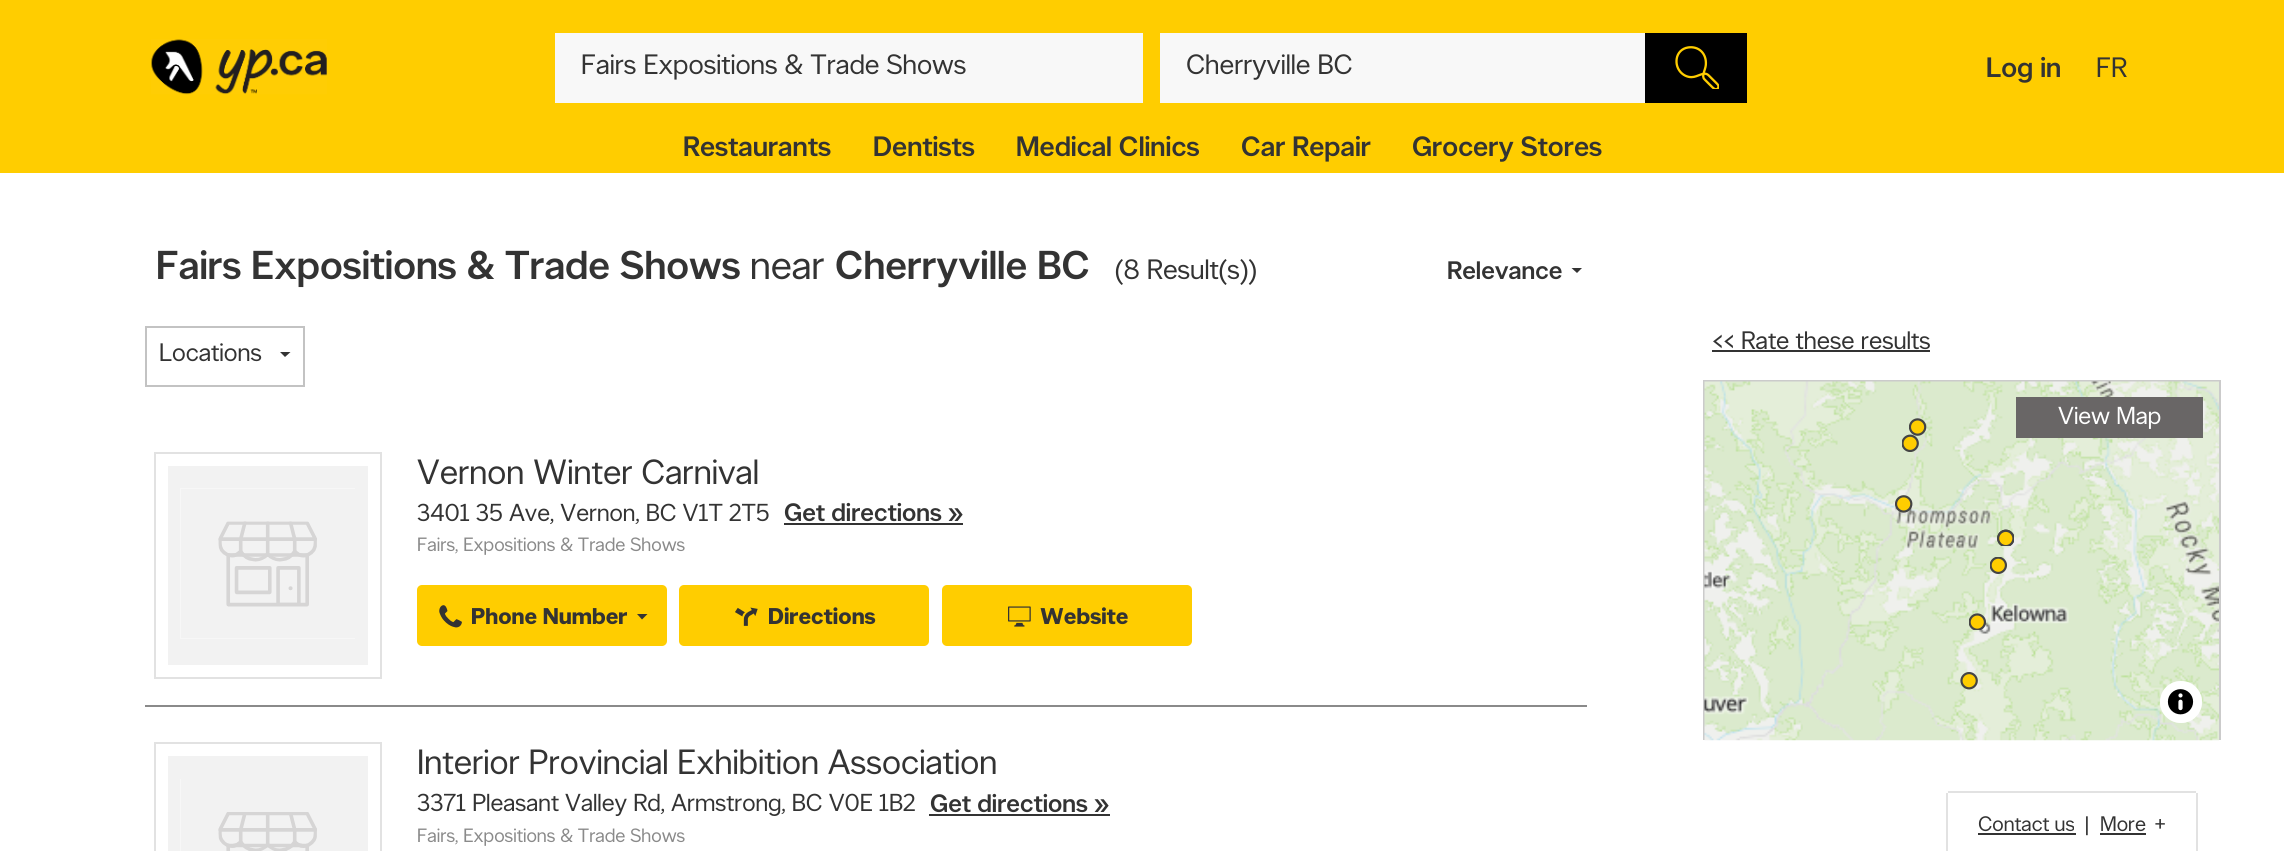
#include <cairo.h>
#include <math.h>
#include <stddef.h>

typedef struct { const char *family; double size; int italic, bold; unsigned color; } style_t;
static cairo_t *ctx;

static void ink(unsigned color) {
    cairo_set_source_rgb(ctx, (color >> 16) / 255.0, (color >> 8 & 255) / 255.0, (color & 255) / 255.0);
}

static void write(double x, double y, const char *s, const style_t *st) {
    cairo_select_font_face(ctx, st->family, st->italic ? CAIRO_FONT_SLANT_ITALIC : CAIRO_FONT_SLANT_NORMAL,
        st->bold ? CAIRO_FONT_WEIGHT_BOLD : CAIRO_FONT_WEIGHT_NORMAL);
    cairo_set_font_size(ctx, st->size);
    ink(st->color);
    cairo_move_to(ctx, x, y);
    cairo_show_text(ctx, s);
}

static void block(double x, double y, double w, double h, unsigned color) {
    ink(color);
    cairo_rectangle(ctx, x, y, w, h);
    cairo_fill(ctx);
}

static void round_path(double x, double y, double w, double h, double r) {
    cairo_new_sub_path(ctx);
    cairo_arc(ctx, x + w - r, y + h - r, r, 0, M_PI / 2);
    cairo_arc(ctx, x + r, y + h - r, r, M_PI / 2, M_PI);
    cairo_arc(ctx, x + r, y + r, r, M_PI, 1.5 * M_PI);
    cairo_arc(ctx, x + w - r, y + r, r, 1.5 * M_PI, 2 * M_PI);
    cairo_close_path(ctx);
}

static void paste(const char *path, double x, double y, double w, double h) {
    cairo_surface_t *image = cairo_image_surface_create_from_png(path);
    cairo_save(ctx);
    cairo_set_source_surface(ctx, image, x, y);
    cairo_rectangle(ctx, x, y, w, h);
    cairo_fill(ctx);
    cairo_restore(ctx);
    cairo_surface_destroy(image);
}

static const style_t s1 = {"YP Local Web", 28, 0, 0, 0x333333};
static const style_t s2 = {"YP Local Web Medium", 28, 0, 0, 0x333333};
static const style_t s3 = {"YP Local Web Medium", 40.25, 0, 0, 0x333333};
static const style_t s4 = {"YP Local Web", 40.25, 0, 0, 0x333333};
static const style_t s5 = {"YP Local Web Medium", 25.25, 0, 0, 0x333333};
static const style_t s6 = {"YP Local Web", 25.25, 0, 0, 0x333333};
static const style_t s7 = {"YP Local Web", 35, 0, 0, 0x333333};
static const style_t s8 = {"YP Local Web", 24.5, 0, 0, 0x333333};
static const style_t s9 = {"YP Local Web", 19.25, 0, 0, 0x8a8a8a};
static const style_t s10 = {"YP Local Web", 22.75, 0, 1, 0x333333};
static const style_t s11 = {"YP Local Web", 24.5, 0, 0, 0xffffff};
static const style_t s12 = {"YP Local Web", 21, 0, 0, 0x333333};

int main(void) {
    cairo_surface_t *surface = cairo_image_surface_create(CAIRO_FORMAT_RGB24, 2284, 851);
    ctx = cairo_create(surface);
    cairo_font_options_t *options = cairo_font_options_create();
    cairo_font_options_set_hint_metrics(options, CAIRO_HINT_METRICS_OFF);
    cairo_font_options_set_hint_style(options, CAIRO_HINT_STYLE_NONE);
    cairo_set_font_options(ctx, options);
    cairo_set_miter_limit(ctx, 4);
    ink(0xffffff);
    cairo_paint(ctx);
    block(0, 0, 2284, 173, 0xffcd00);
    paste("pic1.png", 151, 39, 176, 56);
    block(555, 33, 588, 70, 0xf8f8f8);
    write(581, 74, "Fairs Expositions & Trade Shows", &s1);
    block(1160, 33, 485, 70, 0xf8f8f8);
    write(1186, 74, "Cherryville BC", &s1);
    block(1645, 33, 102, 70, 0x000000);
    paste("pic2.png", 1675, 46, 44, 43);
    write(1986, 77, "Log in", &s2);
    write(2096, 77, "FR", &s1);
    write(683, 156, "Restaurants", &s2);
    write(873, 156, "Dentists", &s2);
    write(1016, 156, "Medical Clinics", &s2);
    write(1241, 156, "Car Repair", &s2);
    write(1412, 156, "Grocery Stores", &s2);
    write(156, 279, "Fairs Expositions & Trade Shows", &s3);
    write(750, 279, "near", &s4);
    write(835, 279, "Cherryville BC", &s3);
    write(1115, 279, "(8 Result(s))", &s1);
    write(1447, 279, "Relevance", &s5);
    cairo_new_path(ctx);
    cairo_move_to(ctx, 1571.5, 268);
    cairo_line_to(ctx, 1582, 268);
    cairo_line_to(ctx, 1577, 273);
    cairo_close_path(ctx);
    cairo_fill(ctx);
    cairo_rectangle(ctx, 146, 327, 158, 59);
    ink(0xc3c3c3);
    cairo_stroke(ctx);
    write(159, 361, "Locations", &s6);
    cairo_new_path(ctx);
    cairo_move_to(ctx, 280, 352);
    cairo_line_to(ctx, 290.5, 352);
    cairo_line_to(ctx, 285, 357);
    cairo_close_path(ctx);
    cairo_fill(ctx);
    block(145, 705, 1442, 2, 0x8a8a8a);
    cairo_rectangle(ctx, 155, 453, 226, 225);
    ink(0xe2e2e2);
    cairo_stroke(ctx);
    block(168, 466, 200, 199, 0xf2f2f2);
    paste("pic3.png", 180, 488, 175, 151);
    write(417, 484, "Vernon Winter Carnival", &s7);
    write(417, 521, "3401 35 Ave, Vernon, BC V1T 2T5", &s8);
    write(784, 521, "Get directions »", &s5);
    block(784, 523, 179, 2, 0x333333);
    write(417, 551, "Fairs, Expositions & Trade Shows", &s9);
    ink(0xffcd00);
    round_path(417, 585, 250, 61, 5);
    cairo_fill(ctx);
    paste("pic4.png", 439, 605, 23, 23);
    write(471, 624, "Phone Number", &s10);
    cairo_new_path(ctx);
    cairo_move_to(ctx, 637, 614);
    cairo_line_to(ctx, 647.5, 614);
    cairo_line_to(ctx, 642, 619.5);
    cairo_close_path(ctx);
    cairo_fill(ctx);
    ink(0xffcd00);
    round_path(679, 585, 250, 61, 5);
    cairo_fill(ctx);
    paste("pic5.png", 735, 607, 23, 19);
    write(768, 624, "Directions", &s10);
    ink(0xffcd00);
    round_path(942, 585, 250, 61, 5);
    cairo_fill(ctx);
    paste("pic6.png", 1008, 606, 23, 21);
    write(1040, 624, "Website", &s10);
    cairo_rectangle(ctx, 155, 743, 226, 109);
    ink(0xe2e2e2);
    cairo_stroke(ctx);
    block(168, 756, 200, 95, 0xf2f2f2);
    paste("pic7.png", 180, 779, 137, 72);
    write(417, 774, "Interior Provincial Exhibition Association", &s7);
    write(417, 811, "3371 Pleasant Valley Rd, Armstrong, BC V0E 1B2", &s8);
    write(930, 812, "Get directions »", &s5);
    block(929, 814, 181, 2, 0x333333);
    write(417, 842, "Fairs, Expositions & Trade Shows", &s9);
    write(1712, 349, "<< Rate these results", &s6);
    block(1712, 350, 218, 2, 0x333333);
    block(1703, 380, 518, 2, 0xcbcbcb);
    block(2219, 380, 2, 360, 0xcbcbcb);
    block(1703, 380, 2, 360, 0xcbcbcb);
    paste("pic8.png", 1704, 381, 515, 360);
    paste("pic9.png", 1909, 418, 18, 18);
    paste("pic10.png", 1902, 434, 17, 18);
    paste("pic11.png", 1895, 495, 18, 18);
    paste("pic12.png", 1997, 529, 17, 17);
    paste("pic13.png", 1997, 529, 17, 17);
    paste("pic14.png", 1990, 557, 17, 17);
    paste("pic15.png", 1969, 613, 17, 17);
    paste("pic16.png", 1960, 672, 18, 18);
    ink(0xffffff);
    cairo_arc(ctx, 2181, 702, 21, 0, 2 * M_PI);
    cairo_fill(ctx);
    cairo_set_source_rgba(ctx, 1, 1, 1, 0.5);
    cairo_arc(ctx, 2181, 702, 21, 0, 2 * M_PI);
    cairo_fill(ctx);
    paste("pic17.png", 2167, 689, 27, 26);
    block(2016, 397, 187, 41, 0x696666);
    write(2058, 424, "View Map", &s11);
    block(1948, 791, 248, 2, 0xe2e2e2);
    block(2196, 793, 2, 58, 0xe2e2e2);
    block(1946, 793, 2, 58, 0xe2e2e2);
    write(1978, 831, "Contact us", &s12);
    block(1978, 833, 98, 2, 0x333333);
    write(2085, 831, "|", &s12);
    write(2100, 831, "More", &s12);
    block(2100, 833, 46, 2, 0x333333);
    write(2154, 831, "+", &s12);
    cairo_surface_write_to_png(surface, "screenshot.png");
    cairo_font_options_destroy(options);
    cairo_destroy(ctx);
    cairo_surface_destroy(surface);
    return 0;
}
